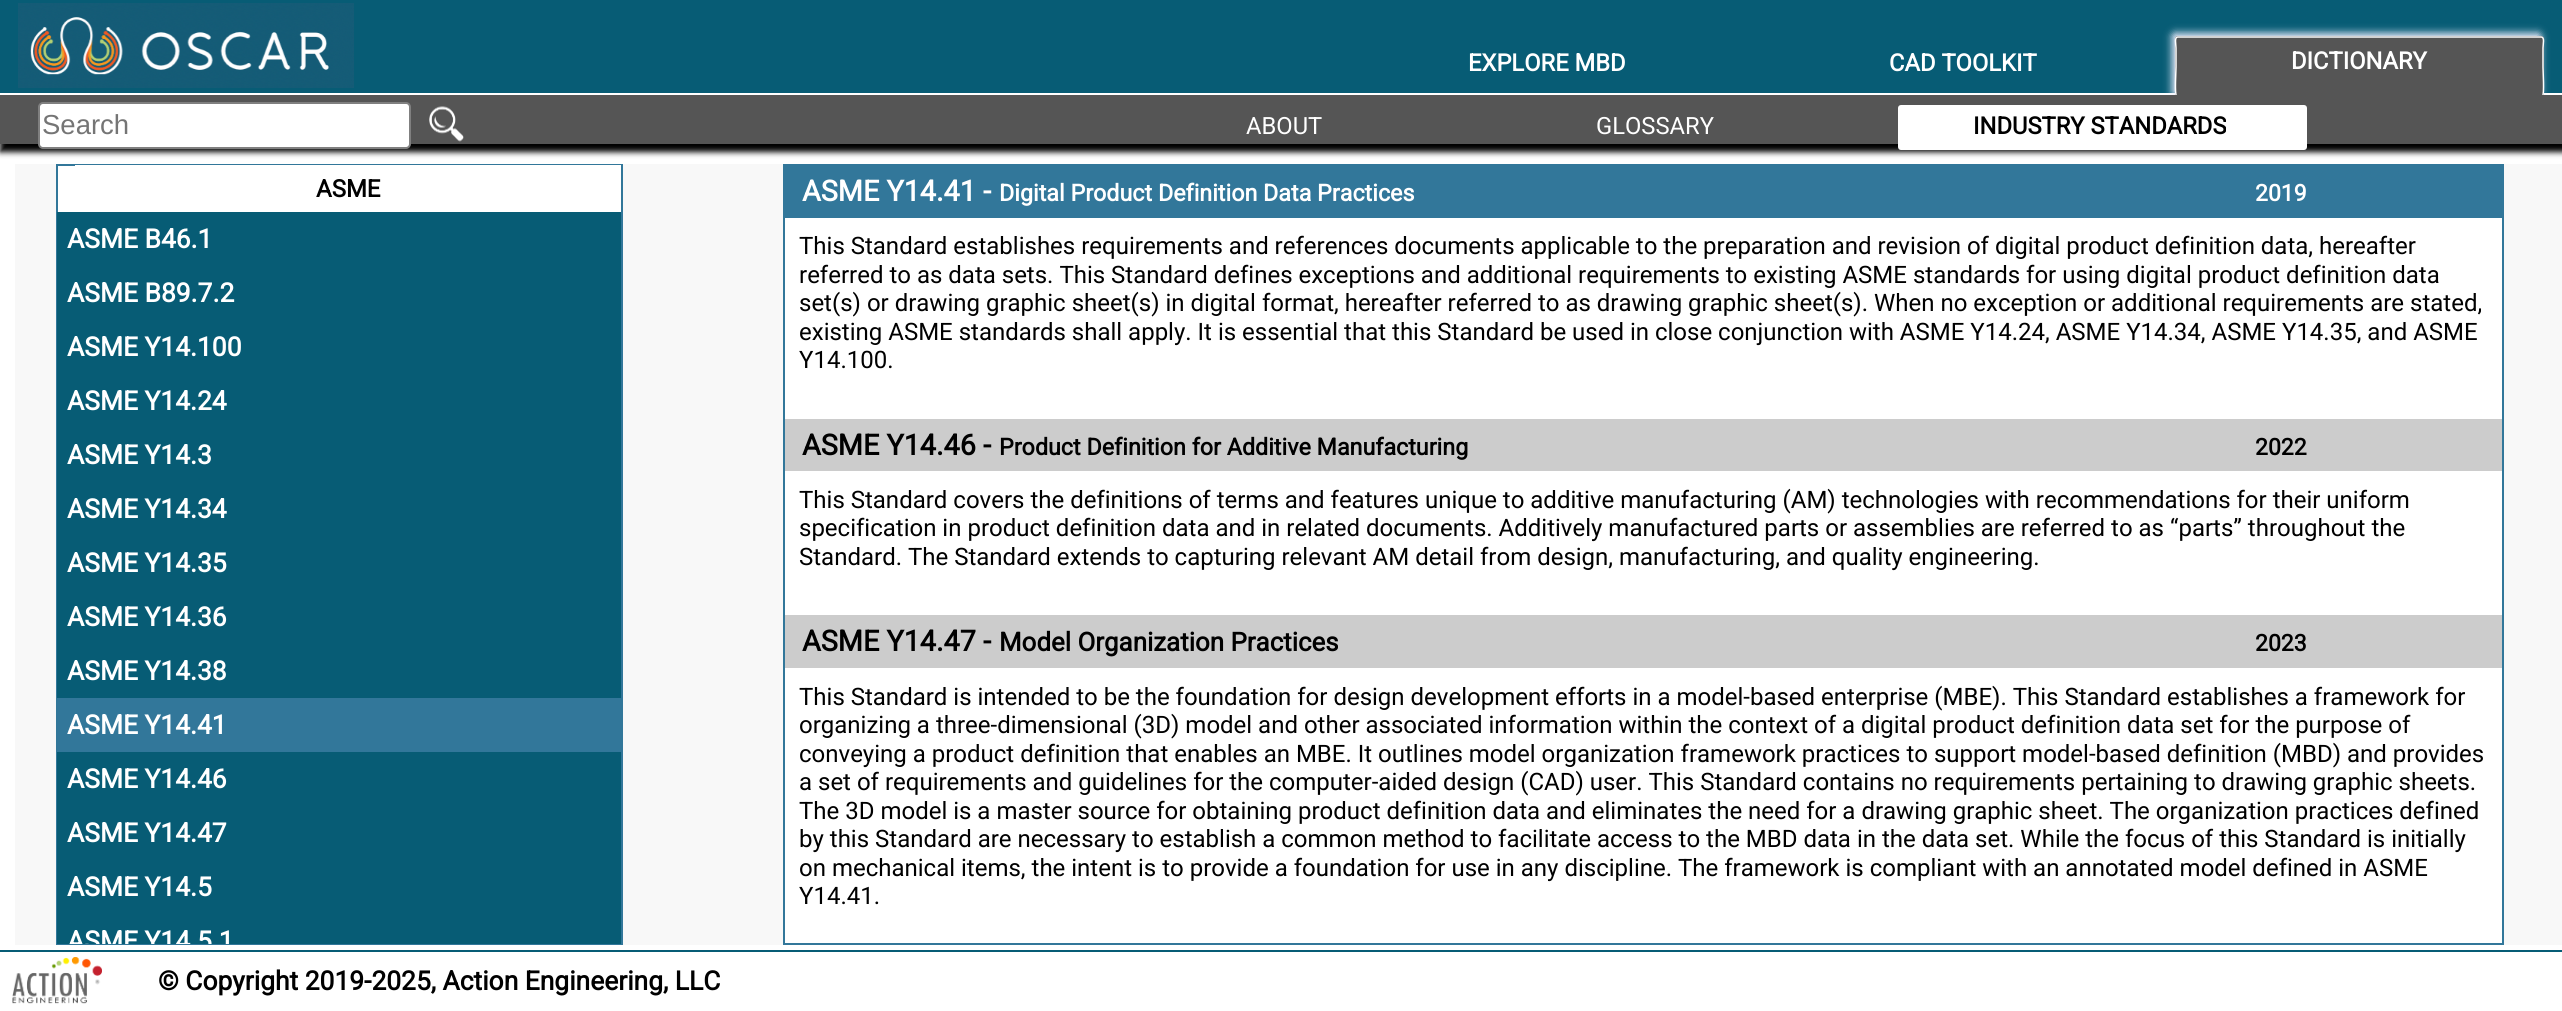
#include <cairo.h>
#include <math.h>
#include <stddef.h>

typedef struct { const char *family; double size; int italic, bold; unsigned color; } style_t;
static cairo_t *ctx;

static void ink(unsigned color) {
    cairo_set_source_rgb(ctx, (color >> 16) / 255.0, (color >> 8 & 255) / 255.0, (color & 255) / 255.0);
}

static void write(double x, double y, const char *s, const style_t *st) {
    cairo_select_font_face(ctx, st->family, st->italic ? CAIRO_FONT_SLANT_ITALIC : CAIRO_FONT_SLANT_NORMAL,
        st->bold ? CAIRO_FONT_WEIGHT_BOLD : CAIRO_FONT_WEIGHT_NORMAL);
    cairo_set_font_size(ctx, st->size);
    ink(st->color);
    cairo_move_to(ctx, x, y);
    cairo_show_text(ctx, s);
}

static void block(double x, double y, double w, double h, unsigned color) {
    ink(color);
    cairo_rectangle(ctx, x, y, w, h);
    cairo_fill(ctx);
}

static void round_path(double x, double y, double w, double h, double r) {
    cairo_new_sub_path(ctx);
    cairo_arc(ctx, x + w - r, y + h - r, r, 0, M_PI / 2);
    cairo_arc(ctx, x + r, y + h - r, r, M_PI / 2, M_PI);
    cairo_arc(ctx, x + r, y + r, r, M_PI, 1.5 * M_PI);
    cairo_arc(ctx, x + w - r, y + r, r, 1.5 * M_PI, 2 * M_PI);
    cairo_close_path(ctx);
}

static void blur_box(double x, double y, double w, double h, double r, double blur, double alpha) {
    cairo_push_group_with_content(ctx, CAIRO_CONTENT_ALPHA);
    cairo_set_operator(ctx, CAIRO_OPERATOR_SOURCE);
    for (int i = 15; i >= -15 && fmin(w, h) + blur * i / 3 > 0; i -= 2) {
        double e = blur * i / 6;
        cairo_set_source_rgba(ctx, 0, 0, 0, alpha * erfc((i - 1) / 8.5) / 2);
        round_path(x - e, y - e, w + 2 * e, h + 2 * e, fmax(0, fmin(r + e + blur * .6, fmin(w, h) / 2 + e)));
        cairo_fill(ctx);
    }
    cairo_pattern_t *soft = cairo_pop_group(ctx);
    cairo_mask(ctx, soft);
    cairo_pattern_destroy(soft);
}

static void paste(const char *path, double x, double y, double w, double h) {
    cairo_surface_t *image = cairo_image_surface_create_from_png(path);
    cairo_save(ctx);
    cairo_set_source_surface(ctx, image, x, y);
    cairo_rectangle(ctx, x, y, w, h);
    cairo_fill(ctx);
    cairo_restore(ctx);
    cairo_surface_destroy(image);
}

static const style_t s1 = {"Roboto", 23.75, 0, 1, 0xffffff};
static const style_t s2 = {"Liberation Sans", 27.5, 0, 0, 0x757575};
static const style_t s3 = {"Roboto", 23.75, 0, 0, 0xffffff};
static const style_t s4 = {"Roboto", 23.75, 0, 1, 0x000000};
static const style_t s5 = {"Roboto", 24, 0, 1, 0x000000};
static const style_t s6 = {"Roboto", 26.4, 0, 1, 0xffffff};
static const style_t s7 = {"Roboto", 28.75, 0, 1, 0xffffff};
static const style_t s8 = {"Roboto", 23.3, 0, 1, 0xffffff};
static const style_t s9 = {"Roboto", 23, 0, 1, 0xffffff};
static const style_t s10 = {"Roboto", 24, 0, 0, 0x000000};
static const style_t s11 = {"Roboto", 28.75, 0, 1, 0x000000};
static const style_t s12 = {"Roboto", 23.3, 0, 1, 0x000000};
static const style_t s13 = {"Roboto", 23, 0, 1, 0x000000};
static const style_t s14 = {"Roboto", 25.9, 0, 1, 0x000000};
static const style_t s15 = {"Roboto", 26.4, 0, 1, 0x000000};

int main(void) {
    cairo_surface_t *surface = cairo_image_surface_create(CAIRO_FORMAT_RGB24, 2562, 1011);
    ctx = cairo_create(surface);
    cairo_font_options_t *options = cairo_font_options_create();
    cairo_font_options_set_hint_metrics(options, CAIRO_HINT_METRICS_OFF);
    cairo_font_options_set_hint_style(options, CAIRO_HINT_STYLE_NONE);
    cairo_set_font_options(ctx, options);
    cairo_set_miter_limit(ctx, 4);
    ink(0xffffff);
    cairo_paint(ctx);
    block(0, 0, 2562, 93, 0x075c75);
    paste("pic1.png", 18, 3, 336, 85);
    write(1468, 71, "EXPLORE MBD", &s1);
    write(1889, 71, "CAD TOOLKIT", &s1);
    ink(0xeeeeff);
    blur_box(2172, 33, 369, 62, 3, 4, 1);
    ink(0x555555);
    round_path(2175, 36, 369, 62, 3);
    cairo_fill(ctx);
    cairo_new_path(ctx);
    cairo_move_to(ctx, 2176.5, 96);
    cairo_curve_to(ctx, 2174.5, 94.5, 2176, 70.5, 2176, 67);
    cairo_line_to(ctx, 2176, 48);
    cairo_curve_to(ctx, 2176, 44, 2174, 37, 2178, 37);
    cairo_line_to(ctx, 2541, 37);
    cairo_curve_to(ctx, 2545, 37, 2543, 44, 2543, 48);
    cairo_line_to(ctx, 2543, 67);
    cairo_curve_to(ctx, 2543, 70.5, 2544.5, 94.5, 2542.5, 96);
    ink(0xffffff);
    cairo_set_line_width(ctx, 1.5);
    cairo_stroke(ctx);
    write(2291, 69, "DICTIONARY", &s1);
    ink(0x000000);
    blur_box(0, 102, 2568, 50, 0, 3, 1);
    block(0, 95, 2562, 49, 0x555555);
    ink(0xffffff);
    round_path(39, 103, 371, 45, 4);
    cairo_fill_preserve(ctx);
    ink(0x808080);
    cairo_set_line_width(ctx, 2);
    cairo_stroke(ctx);
    write(42, 134, "Search", &s2);
    paste("pic2.png", 429, 106, 35, 36);
    write(1246, 134, "ABOUT", &s3);
    write(1596, 134, "GLOSSARY", &s3);
    round_path(1899, 106, 407, 43, 2);
    cairo_fill_preserve(ctx);
    cairo_stroke(ctx);
    write(1973, 134, "INDUSTRY STANDARDS", &s4);
    block(15, 164, 2547, 781, 0xf8f8f8);
    block(58, 166, 17, 46, 0xffffff);
    cairo_rectangle(ctx, 57, 165, 565, 779);
    ink(0x32779a);
    cairo_stroke(ctx);
    block(75, 165, 546, 47, 0xffffff);
    write(316, 197, "ASME", &s5);
    block(57, 212, 564, 486, 0x075c75);
    write(67, 248, "ASME B46.1", &s6);
    write(67, 302, "ASME B89.7.2", &s6);
    write(67, 356, "ASME Y14.100", &s6);
    write(67, 410, "ASME Y14.24", &s6);
    write(67, 464, "ASME Y14.3", &s6);
    write(67, 518, "ASME Y14.34", &s6);
    write(67, 572, "ASME Y14.35", &s6);
    write(67, 626, "ASME Y14.36", &s6);
    write(67, 680, "ASME Y14.38", &s6);
    block(58, 698, 563, 54, 0x32779a);
    write(67, 734, "ASME Y14.41", &s6);
    block(57, 752, 564, 192, 0x075c75);
    write(67, 788, "ASME Y14.46", &s6);
    write(67, 842, "ASME Y14.47", &s6);
    write(67, 896, "ASME Y14.5", &s6);
    cairo_save(ctx);
    cairo_rectangle(ctx, 57, 165, 564, 779);
    cairo_clip(ctx);
    write(67, 950, "ASME Y14.5.1", &s6);
    cairo_restore(ctx);
    block(785, 218, 1717, 725, 0xffffff);
    cairo_rectangle(ctx, 784, 165, 1719, 779);
    ink(0x32779a);
    cairo_stroke(ctx);
    block(785, 166, 1717, 52, 0x32779a);
    write(802, 201, "ASME Y14.41 -", &s7);
    write(999, 201, "Digital Product Definition Data Practices", &s8);
    write(2255, 201, "2019", &s9);
    write(799, 254, "This Standard establishes requirements and references documents applicable to the preparation and revision of digital product definition data, hereafter", &s10);
    write(799, 283, "referred to as data sets. This Standard defines exceptions and additional requirements to existing ASME standards for using digital product definition data", &s10);
    write(799, 311, "set(s) or drawing graphic sheet(s) in digital format, hereafter referred to as drawing graphic sheet(s). When no exception or additional requirements are stated,", &s10);
    write(799, 340, "existing ASME standards shall apply. It is essential that this Standard be used in close conjunction with ASME Y14.24, ASME Y14.34, ASME Y14.35, and ASME", &s10);
    write(799, 368, "Y14.100.", &s10);
    block(785, 419, 1717, 52, 0xcccccc);
    write(802, 455, "ASME Y14.46 -", &s11);
    write(999, 455, "Product Definition for Additive Manufacturing", &s12);
    write(2255, 455, "2022", &s13);
    write(799, 508, "This Standard covers the definitions of terms and features unique to additive manufacturing (AM) technologies with recommendations for their uniform", &s10);
    write(799, 536, "specification in product definition data and in related documents. Additively manufactured parts or assemblies are referred to as “parts” throughout the", &s10);
    write(799, 565, "Standard. The Standard extends to capturing relevant AM detail from design, manufacturing, and quality engineering.", &s10);
    block(785, 615, 1717, 53, 0xcccccc);
    write(802, 651, "ASME Y14.47 -", &s11);
    write(999, 651, "Model Organization Practices", &s14);
    write(2255, 651, "2023", &s13);
    write(799, 705, "This Standard is intended to be the foundation for design development efforts in a model-based enterprise (MBE). This Standard establishes a framework for", &s10);
    write(799, 733, "organizing a three-dimensional (3D) model and other associated information within the context of a digital product definition data set for the purpose of", &s10);
    write(799, 762, "conveying a product definition that enables an MBE. It outlines model organization framework practices to support model-based definition (MBD) and provides", &s10);
    write(799, 790, "a set of requirements and guidelines for the computer-aided design (CAD) user. This Standard contains no requirements pertaining to drawing graphic sheets.", &s10);
    write(799, 819, "The 3D model is a master source for obtaining product definition data and eliminates the need for a drawing graphic sheet. The organization practices defined", &s10);
    write(799, 847, "by this Standard are necessary to establish a common method to facilitate access to the MBD data in the data set. While the focus of this Standard is initially", &s10);
    write(799, 876, "on mechanical items, the intent is to provide a foundation for use in any discipline. The framework is compliant with an annotated model defined in ASME", &s10);
    write(799, 904, "Y14.41.", &s10);
    block(0, 950, 2562, 2, 0x075c75);
    paste("pic3.png", 12, 957, 90, 47);
    write(158, 990, "© Copyright 2019-2025, Action Engineering, LLC", &s15);
    cairo_surface_write_to_png(surface, "screenshot.png");
    cairo_font_options_destroy(options);
    cairo_destroy(ctx);
    cairo_surface_destroy(surface);
    return 0;
}
